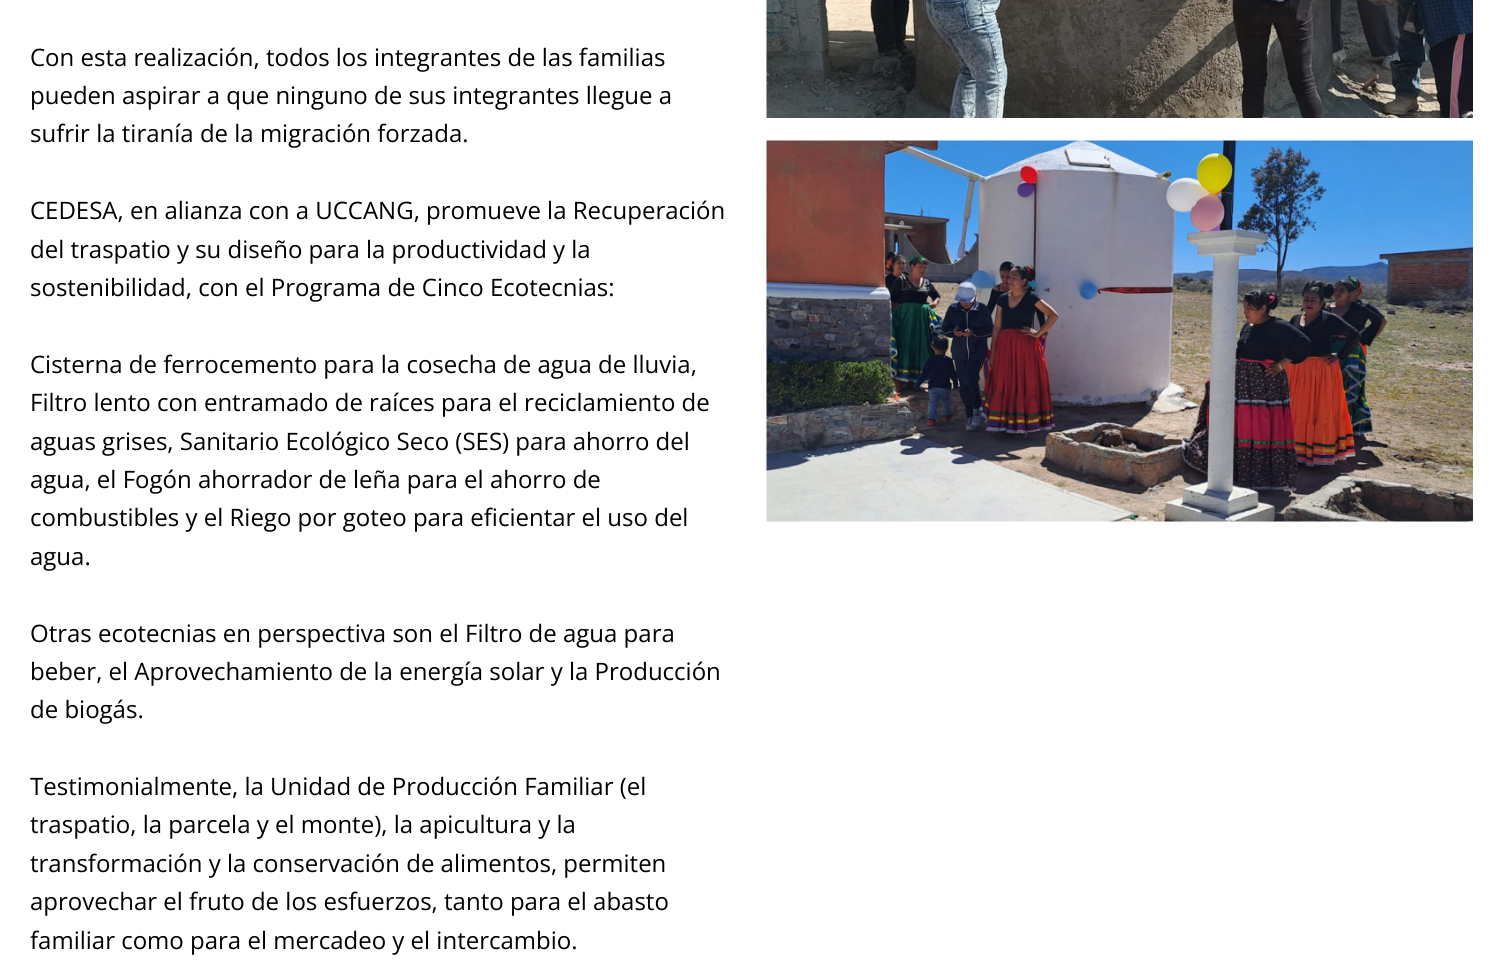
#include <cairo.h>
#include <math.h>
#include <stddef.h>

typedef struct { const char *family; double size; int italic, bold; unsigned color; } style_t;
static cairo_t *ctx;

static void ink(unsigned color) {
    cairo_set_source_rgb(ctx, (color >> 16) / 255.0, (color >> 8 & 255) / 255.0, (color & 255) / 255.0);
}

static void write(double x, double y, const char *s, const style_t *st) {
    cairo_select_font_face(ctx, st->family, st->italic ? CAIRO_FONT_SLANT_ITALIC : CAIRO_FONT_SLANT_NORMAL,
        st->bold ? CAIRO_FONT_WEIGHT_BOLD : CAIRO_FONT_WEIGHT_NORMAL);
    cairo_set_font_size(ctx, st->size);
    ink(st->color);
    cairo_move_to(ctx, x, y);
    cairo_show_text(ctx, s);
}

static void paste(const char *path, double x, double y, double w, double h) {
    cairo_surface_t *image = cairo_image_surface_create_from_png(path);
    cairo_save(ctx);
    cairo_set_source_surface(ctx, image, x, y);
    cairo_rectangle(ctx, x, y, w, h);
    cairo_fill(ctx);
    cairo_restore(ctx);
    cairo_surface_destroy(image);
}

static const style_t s1 = {"Open Sans", 24, 0, 0, 0x000000};

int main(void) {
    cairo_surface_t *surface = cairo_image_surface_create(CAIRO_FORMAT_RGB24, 1503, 972);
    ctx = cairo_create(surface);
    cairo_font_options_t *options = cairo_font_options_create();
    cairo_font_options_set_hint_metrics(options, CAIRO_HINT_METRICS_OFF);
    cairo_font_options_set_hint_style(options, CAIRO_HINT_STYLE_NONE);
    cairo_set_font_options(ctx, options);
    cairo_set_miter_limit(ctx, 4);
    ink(0xffffff);
    cairo_paint(ctx);
    write(30, 66, "Con esta realización, todos los integrantes de las familias", &s1);
    write(30, 104, "pueden aspirar a que ninguno de sus integrantes llegue a", &s1);
    write(30, 142, "sufrir la tiranía de la migración forzada.", &s1);
    write(30, 219, "CEDESA, en alianza con a UCCANG, promueve la Recuperación", &s1);
    write(30, 258, "del traspatio y su diseño para la productividad y la", &s1);
    write(30, 296, "sostenibilidad, con el Programa de Cinco Ecotecnias:", &s1);
    write(30, 373, "Cisterna de ferrocemento para la cosecha de agua de lluvia,", &s1);
    write(30, 411, "Filtro lento con entramado de raíces para el reciclamiento de", &s1);
    write(30, 450, "aguas grises, Sanitario Ecológico Seco (SES) para ahorro del", &s1);
    write(30, 488, "agua, el Fogón ahorrador de leña para el ahorro de", &s1);
    write(30, 526, "combustibles y el Riego por goteo para eficientar el uso del", &s1);
    write(30, 565, "agua.", &s1);
    write(30, 642, "Otras ecotecnias en perspectiva son el Filtro de agua para", &s1);
    write(30, 680, "beber, el Aprovechamiento de la energía solar y la Producción", &s1);
    write(30, 718, "de biogás.", &s1);
    write(30, 795, "Testimonialmente, la Unidad de Producción Familiar (el", &s1);
    write(30, 833, "traspatio, la parcela y el monte), la apicultura y la", &s1);
    write(30, 872, "transformación y la conservación de alimentos, permiten", &s1);
    write(30, 910, "aprovechar el fruto de los esfuerzos, tanto para el abasto", &s1);
    write(30, 949, "familiar como para el mercadeo y el intercambio.", &s1);
    paste("pic1.png", 766, 0, 707, 118);
    paste("pic2.png", 766, 140, 707, 382);
    cairo_surface_write_to_png(surface, "screenshot.png");
    cairo_font_options_destroy(options);
    cairo_destroy(ctx);
    cairo_surface_destroy(surface);
    return 0;
}
